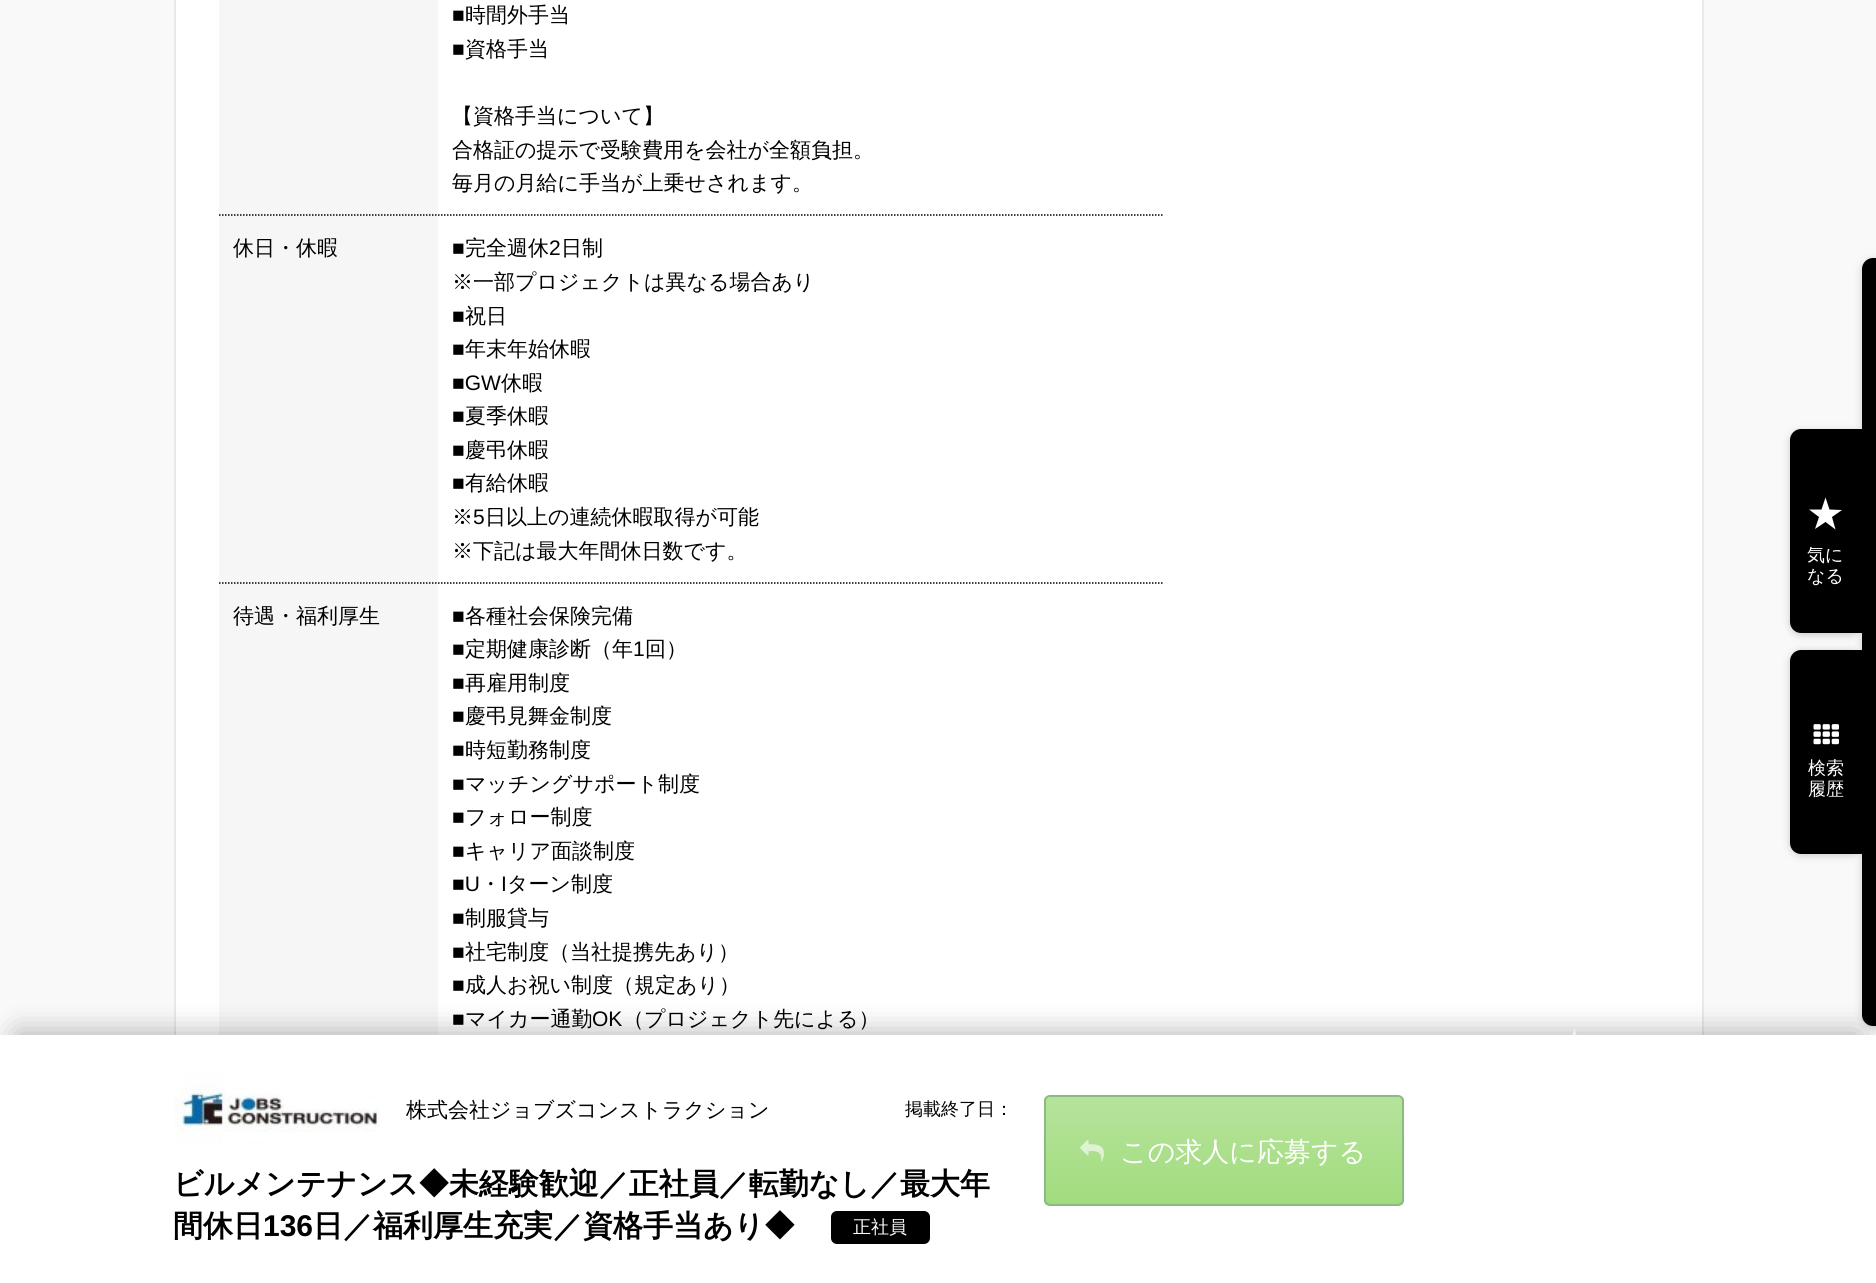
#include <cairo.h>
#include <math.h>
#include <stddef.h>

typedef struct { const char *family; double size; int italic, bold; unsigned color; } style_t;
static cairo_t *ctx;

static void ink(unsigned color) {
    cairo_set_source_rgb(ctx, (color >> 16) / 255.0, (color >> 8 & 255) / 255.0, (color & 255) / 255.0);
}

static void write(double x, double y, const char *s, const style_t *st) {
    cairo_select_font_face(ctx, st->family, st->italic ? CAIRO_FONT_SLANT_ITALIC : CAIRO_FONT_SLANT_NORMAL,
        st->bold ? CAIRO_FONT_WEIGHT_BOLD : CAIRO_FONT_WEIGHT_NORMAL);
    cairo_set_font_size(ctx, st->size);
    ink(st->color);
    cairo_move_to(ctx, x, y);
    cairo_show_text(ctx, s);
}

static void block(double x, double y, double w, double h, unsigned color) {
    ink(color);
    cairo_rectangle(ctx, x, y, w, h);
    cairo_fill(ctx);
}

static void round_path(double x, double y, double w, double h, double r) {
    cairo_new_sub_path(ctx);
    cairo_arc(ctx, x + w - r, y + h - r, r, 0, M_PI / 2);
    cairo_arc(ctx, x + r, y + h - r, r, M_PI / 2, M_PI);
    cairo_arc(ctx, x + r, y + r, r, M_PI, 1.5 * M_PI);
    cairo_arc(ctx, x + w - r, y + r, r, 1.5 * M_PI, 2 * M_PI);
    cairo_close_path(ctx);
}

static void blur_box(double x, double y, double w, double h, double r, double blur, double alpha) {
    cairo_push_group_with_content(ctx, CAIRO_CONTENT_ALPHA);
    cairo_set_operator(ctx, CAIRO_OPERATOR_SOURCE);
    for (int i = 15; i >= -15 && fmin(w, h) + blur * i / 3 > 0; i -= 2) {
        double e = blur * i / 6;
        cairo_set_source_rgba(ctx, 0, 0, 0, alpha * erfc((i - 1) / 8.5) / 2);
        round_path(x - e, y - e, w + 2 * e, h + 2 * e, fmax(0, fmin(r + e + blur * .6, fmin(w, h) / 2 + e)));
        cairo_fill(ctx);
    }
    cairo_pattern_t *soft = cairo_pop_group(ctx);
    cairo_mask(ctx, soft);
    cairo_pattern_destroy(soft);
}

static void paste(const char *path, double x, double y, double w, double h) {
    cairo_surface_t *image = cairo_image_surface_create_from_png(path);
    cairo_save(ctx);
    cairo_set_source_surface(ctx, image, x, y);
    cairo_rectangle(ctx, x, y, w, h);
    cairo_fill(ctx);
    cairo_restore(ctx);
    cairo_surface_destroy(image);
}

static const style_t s1 = {"Liberation Sans", 21, 0, 0, 0x000000};
static const style_t s2 = {"WenQuanYi Zen Hei Medium", 21, 0, 0, 0x000000};
static const style_t s3 = {"WenQuanYi Zen Hei Medium", 18, 0, 0, 0x000000};
static const style_t s4 = {"WenQuanYi Zen Hei", 30, 0, 1, 0x000000};
static const style_t s5 = {"Liberation Sans", 30, 0, 1, 0x000000};
static const style_t s6 = {"WenQuanYi Zen Hei Medium", 18, 0, 0, 0xffffff};
static const style_t s7 = {"WenQuanYi Zen Hei Medium", 27, 0, 0, 0xffffff};

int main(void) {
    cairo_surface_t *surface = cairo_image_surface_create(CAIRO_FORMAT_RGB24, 1876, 1283);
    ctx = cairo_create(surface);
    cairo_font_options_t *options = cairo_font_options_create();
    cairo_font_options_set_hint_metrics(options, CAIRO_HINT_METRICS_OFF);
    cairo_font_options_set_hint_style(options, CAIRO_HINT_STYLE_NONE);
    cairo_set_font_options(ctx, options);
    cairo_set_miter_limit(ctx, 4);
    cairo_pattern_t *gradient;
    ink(0xf9f9f9);
    cairo_paint(ctx);
    block(176, 0, 1526, 1035, 0xffffff);
    cairo_rectangle(ctx, 175, -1, 1528, 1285);
    ink(0xe9e9e9);
    cairo_stroke(ctx);
    block(219, 0, 219, 1035, 0xf6f6f6);
    write(452, 22, "■", &s1);
    write(465, 22, "時間外手当", &s2);
    write(452, 56, "■", &s1);
    write(465, 56, "資格手当", &s2);
    write(452, 123, "【資格手当について】", &s2);
    write(452, 157, "合格証の提示で受験費用を会社が全額負担。", &s2);
    write(452, 190, "毎月の月給に手当が上乗せされます。", &s2);
    cairo_new_path(ctx);
    cairo_move_to(ctx, 219, 215);
    cairo_line_to(ctx, 438, 215);
    cairo_set_line_width(ctx, 1.5);
    cairo_set_dash(ctx, (double[]){1.5, 1.5}, 2, 0);
    cairo_stroke(ctx);
    write(233, 255, "休日・休暇", &s2);
    cairo_new_path(ctx);
    cairo_move_to(ctx, 438, 215);
    cairo_line_to(ctx, 1164, 215);
    cairo_stroke(ctx);
    write(452, 255, "■", &s1);
    write(465, 255, "完全週休", &s2);
    write(549, 255, "2", &s1);
    write(561, 255, "日制", &s2);
    write(452, 289, "※一部プロジェクトは異なる場合あり", &s2);
    write(452, 323, "■", &s1);
    write(465, 323, "祝日", &s2);
    write(452, 356, "■", &s1);
    write(465, 356, "年末年始休暇", &s2);
    write(452, 390, "■GW", &s1);
    write(501, 390, "休暇", &s2);
    write(452, 423, "■", &s1);
    write(465, 423, "夏季休暇", &s2);
    write(452, 457, "■", &s1);
    write(465, 457, "慶弔休暇", &s2);
    write(452, 490, "■", &s1);
    write(465, 490, "有給休暇", &s2);
    write(452, 524, "※", &s2);
    write(473, 524, "5", &s1);
    write(485, 524, "日以上の連続休暇取得が可能", &s2);
    write(452, 558, "※下記は最大年間休日数です。", &s2);
    cairo_new_path(ctx);
    cairo_move_to(ctx, 219, 583);
    cairo_line_to(ctx, 438, 583);
    cairo_stroke(ctx);
    write(233, 623, "待遇・福利厚生", &s2);
    cairo_new_path(ctx);
    cairo_move_to(ctx, 438, 583);
    cairo_line_to(ctx, 1164, 583);
    cairo_stroke(ctx);
    write(452, 623, "■", &s1);
    write(465, 623, "各種社会保険完備", &s2);
    write(452, 656, "■", &s1);
    write(465, 656, "定期健康診断（年", &s2);
    write(633, 656, "1", &s1);
    write(645, 656, "回）", &s2);
    write(452, 690, "■", &s1);
    write(465, 690, "再雇用制度", &s2);
    write(452, 723, "■", &s1);
    write(465, 723, "慶弔見舞金制度", &s2);
    write(452, 757, "■", &s1);
    write(465, 757, "時短勤務制度", &s2);
    write(452, 791, "■", &s1);
    write(465, 791, "マッチングサポート制度", &s2);
    write(452, 824, "■", &s1);
    write(465, 824, "フォロー制度", &s2);
    write(452, 858, "■", &s1);
    write(465, 858, "キャリア面談制度", &s2);
    write(452, 891, "■U", &s1);
    write(480, 891, "・", &s2);
    write(501, 891, "I", &s1);
    write(507, 891, "ターン制度", &s2);
    write(452, 925, "■", &s1);
    write(465, 925, "制服貸与", &s2);
    write(452, 959, "■", &s1);
    write(465, 959, "社宅制度（当社提携先あり）", &s2);
    write(452, 992, "■", &s1);
    write(465, 992, "成人お祝い制度（規定あり）", &s2);
    write(452, 1026, "■", &s1);
    write(465, 1026, "マイカー通勤", &s2);
    write(592, 1026, "OK", &s1);
    write(623, 1026, "（プロジェクト先による）", &s2);
    ink(0x000000);
    blur_box(18, 1034, 1841, 213, 0, 15, 0.32);
    block(0, 1035, 1876, 248, 0xffffff);
    cairo_set_source_rgba(ctx, 1, 1, 1, 0.6);
    cairo_new_path(ctx);
    cairo_move_to(ctx, 1558.5, 1039.5);
    cairo_line_to(ctx, 1570.5, 1039.5);
    cairo_line_to(ctx, 1574.5, 1028.5);
    cairo_line_to(ctx, 1578, 1040);
    cairo_line_to(ctx, 1590, 1040);
    cairo_line_to(ctx, 1580.5, 1047);
    cairo_line_to(ctx, 1583.5, 1058.5);
    cairo_line_to(ctx, 1574, 1051.5);
    cairo_line_to(ctx, 1564.5, 1058);
    cairo_line_to(ctx, 1568, 1047);
    cairo_close_path(ctx);
    cairo_fill(ctx);
    paste("pic1.png", 174, 1073, 205, 71);
    write(406, 1117, "株式会社ジョブズコンストラクション", &s2);
    write(905, 1115, "掲載終了日：", &s3);
    write(173, 1194, "ビルメンテナンス◆未経験歓迎／正社員／転勤なし／最大年", &s4);
    write(173, 1236, "間休日", &s4);
    write(263, 1236, "136", &s5);
    write(313, 1236, "日／福利厚生充実／資格手当あり◆", &s4);
    round_path(831, 1211, 99, 33, 6);
    cairo_fill(ctx);
    write(853, 1233, "正社員", &s6);
    cairo_save(ctx);
    round_path(1044, 1095, 360, 111, 6);
    cairo_clip(ctx);
    gradient = cairo_pattern_create_linear(1224, 1097, 1224, 1205);
    cairo_pattern_add_color_stop_rgba(gradient, 0, 0.714, 0.89, 0.608, 1);
    cairo_pattern_add_color_stop_rgba(gradient, 1, 0.631, 0.863, 0.494, 1);
    cairo_set_source(ctx, gradient);
    cairo_pattern_destroy(gradient);
    cairo_rectangle(ctx, 1044, 1097, 360, 108);
    cairo_fill(ctx);
    cairo_restore(ctx);
    round_path(1045, 1096, 358, 109, 5);
    ink(0x89bb83);
    cairo_set_line_width(ctx, 2);
    cairo_set_dash(ctx, NULL, 0, 0);
    cairo_stroke(ctx);
    paste("pic2.png", 1080, 1140, 24, 22);
    write(1120, 1161, "この求人に応募する", &s7);
    ink(0x000000);
    blur_box(1790, 431, 72, 204, 11, 4, 0.2);
    ink(0x000000);
    cairo_new_path(ctx);
    cairo_move_to(ctx, 1801, 429);
    cairo_line_to(ctx, 1862, 429);
    cairo_line_to(ctx, 1862, 633);
    cairo_line_to(ctx, 1801, 633);
    cairo_curve_to(ctx, 1795, 633, 1790, 628, 1790, 622);
    cairo_line_to(ctx, 1790, 440);
    cairo_curve_to(ctx, 1790, 434, 1795, 429, 1801, 429);
    cairo_close_path(ctx);
    cairo_fill(ctx);
    ink(0xffffff);
    cairo_new_path(ctx);
    cairo_move_to(ctx, 1809, 509.5);
    cairo_line_to(ctx, 1821.5, 509.5);
    cairo_line_to(ctx, 1825.5, 497.5);
    cairo_line_to(ctx, 1829.5, 509.5);
    cairo_line_to(ctx, 1842, 510);
    cairo_line_to(ctx, 1832, 517);
    cairo_line_to(ctx, 1835.5, 529.5);
    cairo_line_to(ctx, 1825.5, 522);
    cairo_line_to(ctx, 1815, 529);
    cairo_line_to(ctx, 1819, 517);
    cairo_close_path(ctx);
    cairo_fill(ctx);
    write(1807, 561, "気に", &s6);
    write(1807, 582, "なる", &s6);
    ink(0x000000);
    blur_box(1790, 651, 72, 204, 11, 4, 0.2);
    ink(0x000000);
    cairo_new_path(ctx);
    cairo_move_to(ctx, 1801, 650);
    cairo_line_to(ctx, 1862, 650);
    cairo_line_to(ctx, 1862, 854);
    cairo_line_to(ctx, 1801, 854);
    cairo_curve_to(ctx, 1795, 854, 1790, 849, 1790, 843);
    cairo_line_to(ctx, 1790, 661);
    cairo_curve_to(ctx, 1790, 655, 1795, 650, 1801, 650);
    cairo_close_path(ctx);
    cairo_fill(ctx);
    ink(0x000000);
    blur_box(1862, 260, 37, 768, 11, 4, 0.2);
    ink(0x000000);
    cairo_new_path(ctx);
    cairo_move_to(ctx, 1873, 258);
    cairo_line_to(ctx, 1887, 258);
    cairo_line_to(ctx, 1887, 1026);
    cairo_line_to(ctx, 1873, 1026);
    cairo_curve_to(ctx, 1867, 1026, 1862, 1021, 1862, 1015);
    cairo_line_to(ctx, 1862, 269);
    cairo_curve_to(ctx, 1862, 263, 1867, 258, 1873, 258);
    cairo_close_path(ctx);
    cairo_fill(ctx);
    paste("pic3.png", 1813, 724, 26, 21);
    write(1808, 774, "検索", &s6);
    write(1808, 795, "履歴", &s6);
    cairo_surface_write_to_png(surface, "screenshot.png");
    cairo_font_options_destroy(options);
    cairo_destroy(ctx);
    cairo_surface_destroy(surface);
    return 0;
}
